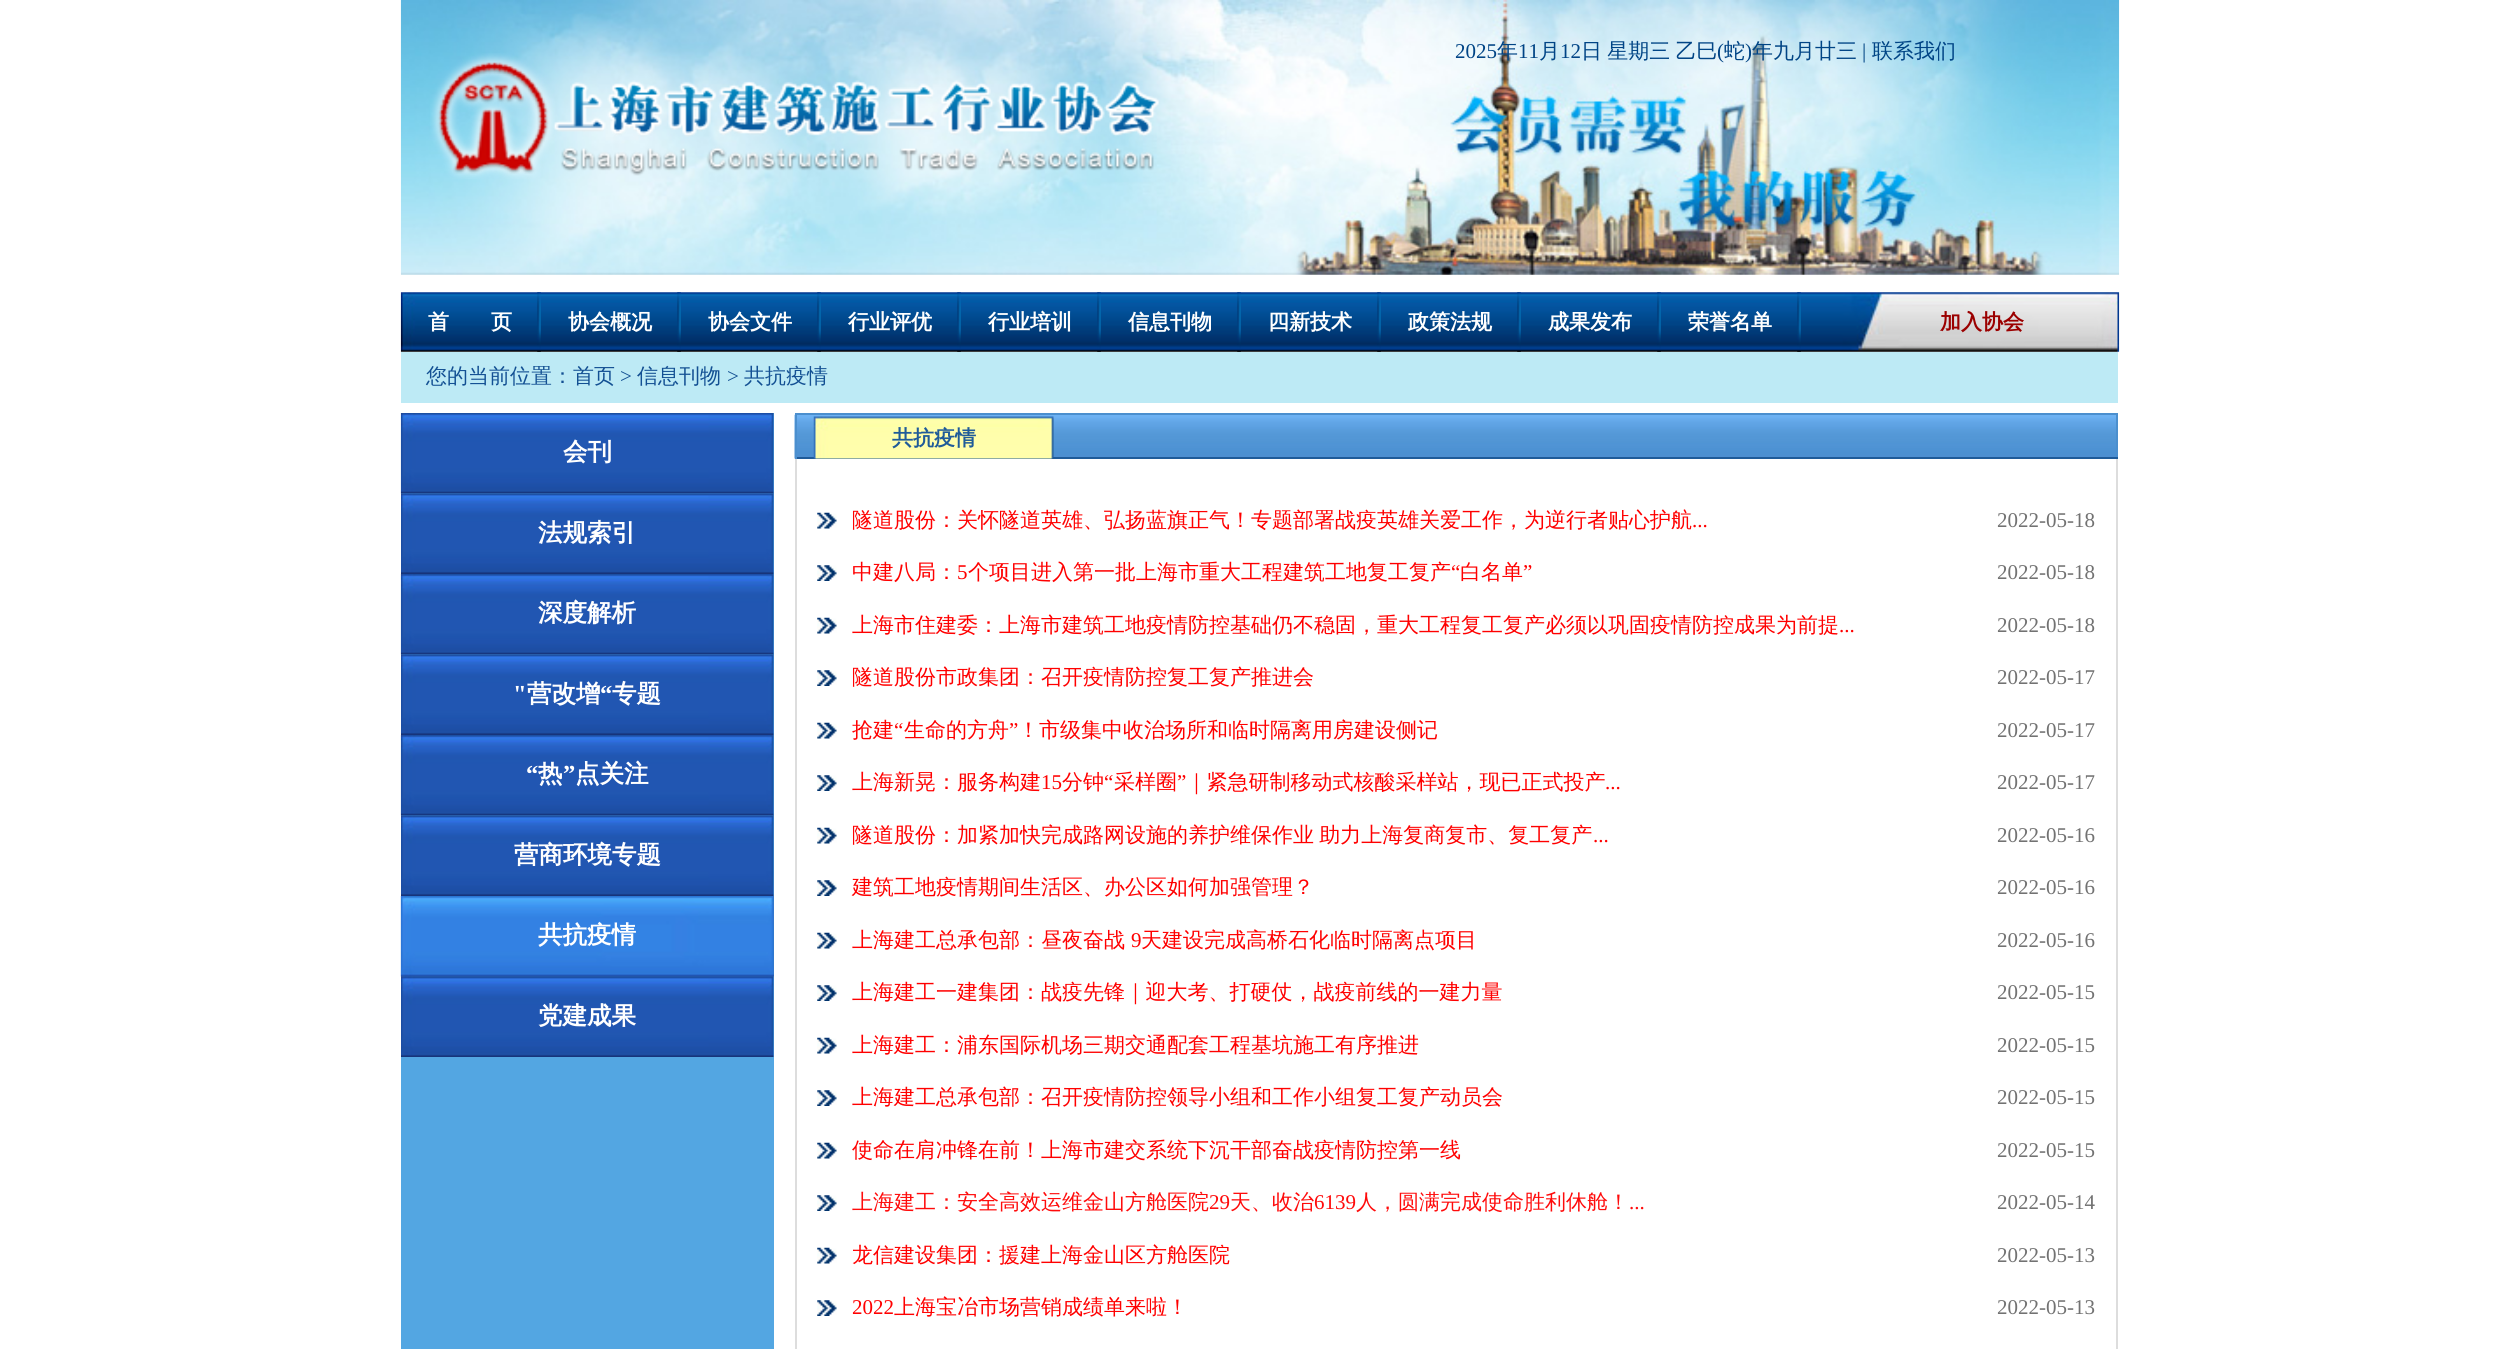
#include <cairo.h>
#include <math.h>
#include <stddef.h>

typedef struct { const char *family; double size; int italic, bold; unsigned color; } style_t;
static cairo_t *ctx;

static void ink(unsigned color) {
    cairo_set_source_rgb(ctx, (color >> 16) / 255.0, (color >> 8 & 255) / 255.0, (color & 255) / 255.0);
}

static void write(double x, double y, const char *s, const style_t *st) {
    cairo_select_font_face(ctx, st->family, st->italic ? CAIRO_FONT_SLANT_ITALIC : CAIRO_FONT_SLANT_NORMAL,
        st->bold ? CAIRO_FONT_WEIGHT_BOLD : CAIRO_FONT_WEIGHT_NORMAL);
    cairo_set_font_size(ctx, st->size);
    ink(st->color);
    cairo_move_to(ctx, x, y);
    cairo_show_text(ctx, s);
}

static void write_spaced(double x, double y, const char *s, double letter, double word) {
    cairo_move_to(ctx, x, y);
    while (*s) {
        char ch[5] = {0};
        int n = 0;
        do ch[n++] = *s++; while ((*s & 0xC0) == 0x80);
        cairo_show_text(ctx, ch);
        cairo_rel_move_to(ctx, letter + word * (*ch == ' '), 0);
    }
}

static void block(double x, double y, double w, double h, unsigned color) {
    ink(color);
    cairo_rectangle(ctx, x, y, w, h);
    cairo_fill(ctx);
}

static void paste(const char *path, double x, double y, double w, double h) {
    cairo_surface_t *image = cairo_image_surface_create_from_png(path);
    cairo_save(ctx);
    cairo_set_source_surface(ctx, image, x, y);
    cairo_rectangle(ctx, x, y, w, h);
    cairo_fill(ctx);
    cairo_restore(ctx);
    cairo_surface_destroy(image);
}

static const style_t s1 = {"Liberation Serif", 21, 0, 0, 0x004485};
static const style_t s2 = {"WenQuanYi Zen Hei Medium", 21, 0, 0, 0x004485};
static const style_t s3 = {"WenQuanYi Zen Hei", 21, 0, 1, 0xffffff};
static const style_t s4 = {"WenQuanYi Zen Hei", 21, 0, 1, 0x9b0000};
static const style_t s5 = {"WenQuanYi Zen Hei Medium", 21, 0, 0, 0x135093};
static const style_t s6 = {"Liberation Serif", 21, 0, 0, 0x135093};
static const style_t s7 = {"WenQuanYi Zen Hei", 24.5, 0, 1, 0xffffff};
static const style_t s8 = {"Liberation Serif", 24.5, 0, 1, 0xffffff};
static const style_t s9 = {"WenQuanYi Zen Hei", 21, 0, 1, 0x1f5b99};
static const style_t s10 = {"WenQuanYi Zen Hei Medium", 21, 0, 0, 0xff0000};
static const style_t s11 = {"Liberation Serif", 21, 0, 0, 0xff0000};
static const style_t s12 = {"Liberation Serif", 21, 0, 0, 0x727272};
static const style_t s13 = {"WenQuanYi Zen Hei Medium", 21, 0, 0, 0xff0b0b};
static const style_t s14 = {"Liberation Serif", 21, 0, 0, 0xff0b0b};

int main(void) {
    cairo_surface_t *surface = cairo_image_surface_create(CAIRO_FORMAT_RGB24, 2518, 1349);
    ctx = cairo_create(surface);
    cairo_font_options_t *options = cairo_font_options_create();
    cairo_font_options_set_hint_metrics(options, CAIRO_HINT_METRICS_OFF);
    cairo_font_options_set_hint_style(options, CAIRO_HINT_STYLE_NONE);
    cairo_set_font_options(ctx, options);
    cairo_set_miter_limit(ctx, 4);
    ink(0xffffff);
    cairo_paint(ctx);
    paste("pic1.png", 400, 0, 1720, 275);
    paste("pic2.png", 430, 53, 729, 126);
    write(1455, 58, "2025", &s1);
    write(1497, 58, "年", &s2);
    write(1518, 58, "11", &s1);
    write(1539, 58, "月", &s2);
    write(1560, 58, "12", &s1);
    cairo_select_font_face(ctx, "WenQuanYi Zen Hei Medium", CAIRO_FONT_SLANT_NORMAL, CAIRO_FONT_WEIGHT_NORMAL);
    write_spaced(1581, 58, "日 星期三 乙巳", 0, -1);
    write(1717, 58, "(", &s1);
    write(1724, 58, "蛇", &s2);
    write(1745, 58, ")", &s1);
    write(1752, 58, "年九月廿三", &s2);
    write(1862, 58, "|", &s1);
    write(1872, 58, "联系我们", &s2);
    paste("pic3.png", 400, 292, 1720, 60);
    paste("pic4.png", 537, 292, 4, 60);
    write(428, 329, "首　　页", &s3);
    paste("pic4.png", 677, 292, 4, 60);
    write(568, 329, "协会概况", &s3);
    paste("pic4.png", 817, 292, 4, 60);
    write(708, 329, "协会文件", &s3);
    paste("pic4.png", 957, 292, 4, 60);
    write(848, 329, "行业评优", &s3);
    paste("pic4.png", 1097, 292, 4, 60);
    write(988, 329, "行业培训", &s3);
    paste("pic4.png", 1237, 292, 4, 60);
    write(1128, 329, "信息刊物", &s3);
    paste("pic4.png", 1377, 292, 4, 60);
    write(1268, 329, "四新技术", &s3);
    paste("pic4.png", 1517, 292, 4, 60);
    write(1408, 329, "政策法规", &s3);
    paste("pic4.png", 1657, 292, 4, 60);
    write(1548, 329, "成果发布", &s3);
    paste("pic4.png", 1797, 292, 4, 60);
    write(1688, 329, "荣誉名单", &s3);
    write(1940, 329, "加入协会", &s4);
    block(401, 352, 1717, 51, 0xbdeaf5);
    write(426, 383, "您的当前位置：首页", &s5);
    write(620, 383, ">", &s6);
    write(637, 383, "信息刊物", &s5);
    write(727, 383, ">", &s6);
    write(744, 383, "共抗疫情", &s5);
    block(401, 413, 373, 936, 0x53a6e2);
    paste("pic5.png", 400, 413, 374, 81);
    write(563, 460, "会刊", &s7);
    paste("pic6.png", 401, 493, 373, 81);
    write(538, 541, "法规索引", &s7);
    paste("pic5.png", 400, 574, 374, 81);
    write(538, 621, "深度解析", &s7);
    paste("pic6.png", 401, 654, 373, 81);
    write(513, 702, "\"", &s8);
    write(527, 702, "营改增", &s7);
    write(600, 702, "“", &s8);
    write(612, 702, "专题", &s7);
    paste("pic5.png", 400, 735, 374, 81);
    write(526, 782, "“", &s8);
    write(538, 782, "热", &s7);
    write(563, 782, "”", &s8);
    write(575, 782, "点关注", &s7);
    paste("pic6.png", 401, 815, 373, 81);
    write(514, 863, "营商环境专题", &s7);
    paste("pic5.png", 400, 896, 374, 81);
    paste("pic7.png", 400, 896, 374, 81);
    write(538, 943, "共抗疫情", &s7);
    paste("pic8.png", 401, 976, 373, 81);
    write(538, 1024, "党建成果", &s7);
    paste("pic9.png", 794, 414, 1322, 45);
    block(795, 413, 1323, 2, 0x4b8fce);
    block(2116, 413, 2, 46, 0x4b8fce);
    block(795, 457, 1323, 2, 0x1f5b99);
    block(795, 413, 2, 46, 0x4b8fce);
    paste("pic10.png", 813, 416, 241, 43);
    write(892, 445, "共抗疫情", &s9);
    block(2116, 459, 2, 890, 0xdddddd);
    block(795, 459, 2, 890, 0xdddddd);
    paste("pic11.png", 817, 512, 20, 17);
    write(852, 527, "隧道股份：关怀隧道英雄、弘扬蓝旗正气！专题部署战疫英雄关爱工作，为逆行者贴心护航", &s10);
    write(1692, 527, "...", &s11);
    write(1997, 527, "2022-05-18", &s12);
    paste("pic12.png", 817, 565, 20, 16);
    write(852, 579, "中建八局：", &s10);
    write(957, 579, "5", &s11);
    write(968, 579, "个项目进入第一批上海市重大工程建筑工地复工复产", &s10);
    write(1451, 579, "“", &s11);
    write(1460, 579, "白名单", &s10);
    write(1523, 579, "”", &s11);
    write(1997, 579, "2022-05-18", &s12);
    paste("pic11.png", 817, 617, 20, 17);
    write(852, 632, "上海市住建委：上海市建筑工地疫情防控基础仍不稳固，重大工程复工复产必须以巩固疫情防控成果为前提", &s10);
    write(1839, 632, "...", &s11);
    write(1997, 632, "2022-05-18", &s12);
    paste("pic12.png", 817, 670, 20, 16);
    write(852, 684, "隧道股份市政集团：召开疫情防控复工复产推进会", &s10);
    write(1997, 684, "2022-05-17", &s12);
    paste("pic11.png", 817, 722, 20, 17);
    write(852, 737, "抢建", &s10);
    write(894, 737, "“", &s11);
    write(904, 737, "生命的方舟", &s10);
    write(1009, 737, "”", &s11);
    write(1018, 737, "！市级集中收治场所和临时隔离用房建设侧记", &s10);
    write(1997, 737, "2022-05-17", &s12);
    paste("pic12.png", 817, 775, 20, 16);
    write(852, 789, "上海新晃：服务构建", &s10);
    write(1041, 789, "15", &s11);
    write(1062, 789, "分钟", &s10);
    write(1104, 789, "“", &s11);
    write(1114, 789, "采样圈", &s10);
    write(1177, 789, "”", &s11);
    write(1186, 789, "｜紧急研制移动式核酸采样站，现已正式投产", &s10);
    write(1605, 789, "...", &s11);
    write(1997, 789, "2022-05-17", &s12);
    paste("pic11.png", 817, 827, 20, 17);
    cairo_select_font_face(ctx, "WenQuanYi Zen Hei Medium", CAIRO_FONT_SLANT_NORMAL, CAIRO_FONT_WEIGHT_NORMAL);
    ink(0xff0000);
    write_spaced(852, 842, "隧道股份：加紧加快完成路网设施的养护维保作业 助力上海复商复市、复工复产", 0, -1);
    write(1593, 842, "...", &s11);
    write(1997, 842, "2022-05-16", &s12);
    paste("pic12.png", 817, 880, 20, 16);
    write(852, 894, "建筑工地疫情期间生活区、办公区如何加强管理？", &s10);
    write(1997, 894, "2022-05-16", &s12);
    paste("pic11.png", 817, 932, 20, 17);
    write(852, 947, "上海建工总承包部：昼夜奋战", &s10);
    write(1131, 947, "9", &s11);
    write(1141, 947, "天建设完成高桥石化临时隔离点项目", &s10);
    write(1997, 947, "2022-05-16", &s12);
    paste("pic12.png", 817, 985, 20, 16);
    write(852, 999, "上海建工一建集团：战疫先锋｜迎大考、打硬仗，战疫前线的一建力量", &s10);
    write(1997, 999, "2022-05-15", &s12);
    paste("pic11.png", 817, 1037, 20, 17);
    write(852, 1052, "上海建工：浦东国际机场三期交通配套工程基坑施工有序推进", &s10);
    write(1997, 1052, "2022-05-15", &s12);
    paste("pic12.png", 817, 1090, 20, 16);
    write(852, 1104, "上海建工总承包部：召开疫情防控领导小组和工作小组复工复产动员会", &s10);
    write(1997, 1104, "2022-05-15", &s12);
    paste("pic11.png", 817, 1142, 20, 17);
    write(852, 1157, "使命在肩冲锋在前！上海市建交系统下沉干部奋战疫情防控第一线", &s10);
    write(1997, 1157, "2022-05-15", &s12);
    paste("pic12.png", 817, 1195, 20, 16);
    write(852, 1209, "上海建工：安全高效运维金山方舱医院", &s13);
    write(1209, 1209, "29", &s14);
    write(1230, 1209, "天、收治", &s13);
    write(1314, 1209, "6139", &s14);
    write(1356, 1209, "人，圆满完成使命胜利休舱！", &s13);
    write(1629, 1209, "...", &s14);
    write(1997, 1209, "2022-05-14", &s12);
    paste("pic11.png", 817, 1247, 20, 17);
    write(852, 1262, "龙信建设集团：援建上海金山区方舱医院", &s10);
    write(1997, 1262, "2022-05-13", &s12);
    paste("pic12.png", 817, 1300, 20, 16);
    write(852, 1314, "2022", &s11);
    write(894, 1314, "上海宝冶市场营销成绩单来啦！", &s10);
    write(1997, 1314, "2022-05-13", &s12);
    cairo_surface_write_to_png(surface, "screenshot.png");
    cairo_font_options_destroy(options);
    cairo_destroy(ctx);
    cairo_surface_destroy(surface);
    return 0;
}
